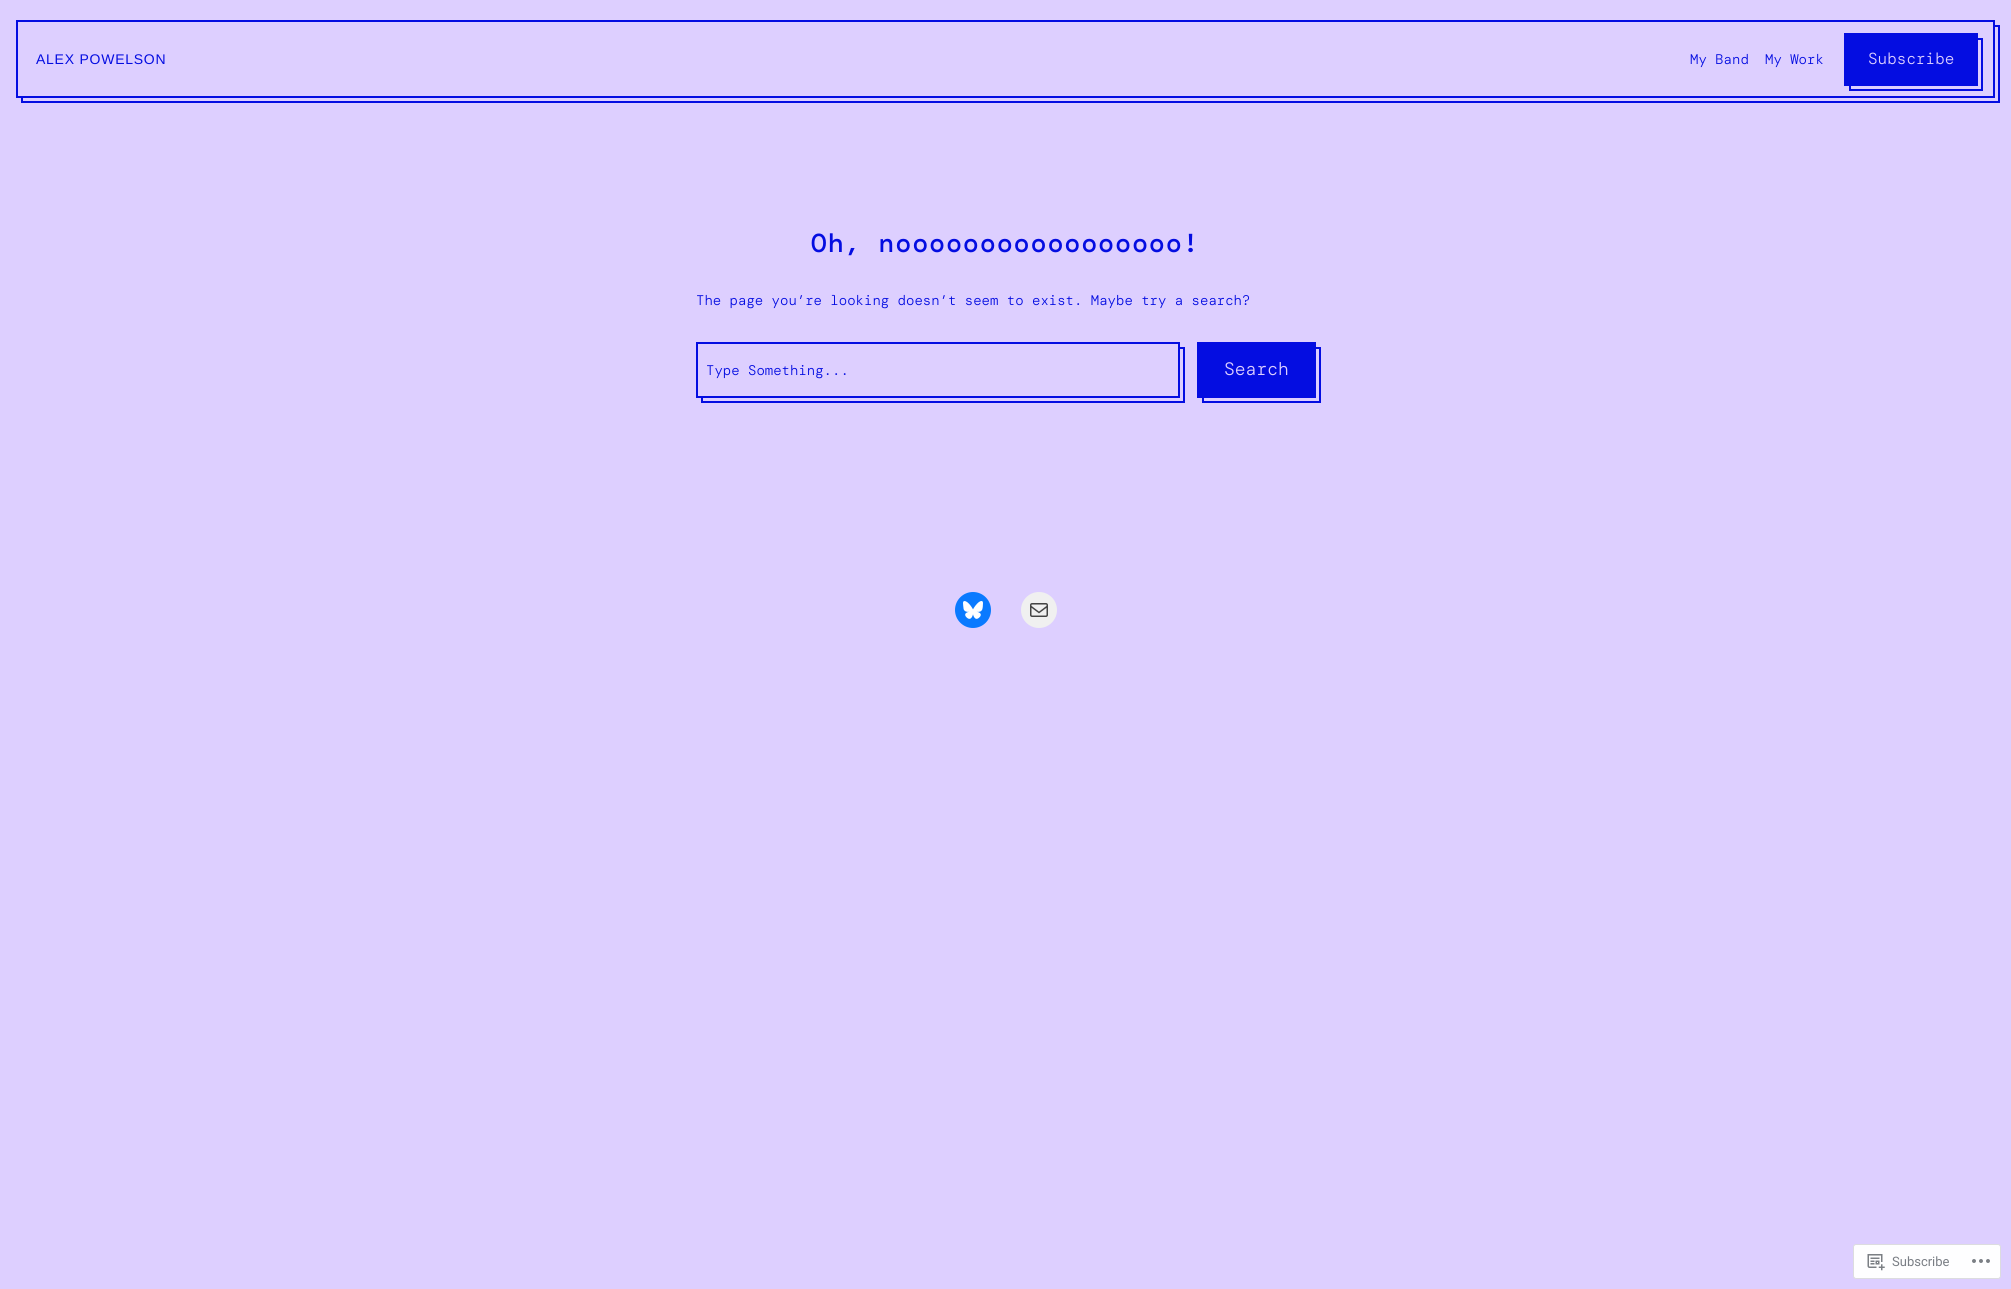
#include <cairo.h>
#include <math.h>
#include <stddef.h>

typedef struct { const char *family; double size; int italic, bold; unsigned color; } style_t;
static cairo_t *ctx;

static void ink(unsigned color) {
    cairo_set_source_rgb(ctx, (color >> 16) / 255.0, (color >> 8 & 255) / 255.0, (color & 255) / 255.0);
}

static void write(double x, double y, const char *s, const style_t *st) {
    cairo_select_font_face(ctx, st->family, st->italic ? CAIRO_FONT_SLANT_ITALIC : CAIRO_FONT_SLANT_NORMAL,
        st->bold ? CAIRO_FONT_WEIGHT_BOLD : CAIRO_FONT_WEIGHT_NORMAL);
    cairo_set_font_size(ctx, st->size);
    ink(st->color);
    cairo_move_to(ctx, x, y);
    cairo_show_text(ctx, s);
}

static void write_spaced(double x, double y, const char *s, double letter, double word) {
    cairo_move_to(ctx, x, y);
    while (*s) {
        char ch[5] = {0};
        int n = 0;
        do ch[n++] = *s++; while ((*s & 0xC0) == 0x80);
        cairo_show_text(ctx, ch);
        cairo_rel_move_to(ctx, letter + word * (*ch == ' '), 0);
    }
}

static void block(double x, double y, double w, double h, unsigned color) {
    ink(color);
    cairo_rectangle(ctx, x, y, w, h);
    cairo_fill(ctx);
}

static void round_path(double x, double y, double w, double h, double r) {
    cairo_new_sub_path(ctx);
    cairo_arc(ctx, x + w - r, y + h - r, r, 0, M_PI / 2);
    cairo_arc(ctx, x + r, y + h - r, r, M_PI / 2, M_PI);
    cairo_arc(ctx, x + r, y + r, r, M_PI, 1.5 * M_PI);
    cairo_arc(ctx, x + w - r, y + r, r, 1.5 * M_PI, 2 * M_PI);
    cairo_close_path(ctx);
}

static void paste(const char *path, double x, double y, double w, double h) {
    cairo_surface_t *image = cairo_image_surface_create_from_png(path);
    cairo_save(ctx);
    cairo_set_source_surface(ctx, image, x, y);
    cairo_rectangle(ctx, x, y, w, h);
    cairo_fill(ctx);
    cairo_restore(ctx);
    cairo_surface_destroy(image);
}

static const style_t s1 = {"DM Mono Light", 14, 0, 0, 0x040de1};
static const style_t s2 = {"DM Mono Light", 16, 0, 0, 0xddcfff};
static const style_t s3 = {"DM Mono Light", 18, 0, 0, 0xddcfff};
static const style_t s4 = {"Roboto", 13, 0, 0, 0x7a7e85};

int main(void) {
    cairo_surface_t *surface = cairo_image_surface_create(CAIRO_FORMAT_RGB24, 2011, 1289);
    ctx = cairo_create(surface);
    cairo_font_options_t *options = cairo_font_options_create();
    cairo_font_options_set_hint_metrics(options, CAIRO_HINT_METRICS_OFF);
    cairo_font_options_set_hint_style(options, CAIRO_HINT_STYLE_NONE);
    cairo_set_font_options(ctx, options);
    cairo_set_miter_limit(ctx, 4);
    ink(0xddcfff);
    cairo_paint(ctx);
    ink(0x040de1);
    cairo_new_path(ctx);
    cairo_move_to(ctx, 21, 98);
    cairo_line_to(ctx, 21, 103);
    cairo_line_to(ctx, 2000, 103);
    cairo_line_to(ctx, 2000, 25);
    cairo_line_to(ctx, 1995, 25);
    cairo_line_to(ctx, 1995, 98);
    cairo_close_path(ctx);
    cairo_fill(ctx);
    ink(0xddcfff);
    cairo_new_path(ctx);
    cairo_move_to(ctx, 23, 98);
    cairo_line_to(ctx, 23, 101);
    cairo_line_to(ctx, 1998, 101);
    cairo_line_to(ctx, 1998, 27);
    cairo_line_to(ctx, 1995, 27);
    cairo_line_to(ctx, 1995, 98);
    cairo_close_path(ctx);
    cairo_fill(ctx);
    cairo_rectangle(ctx, 17, 21, 1977, 76);
    ink(0x040de1);
    cairo_stroke(ctx);
    cairo_select_font_face(ctx, "Liberation Sans", CAIRO_FONT_SLANT_NORMAL, CAIRO_FONT_WEIGHT_NORMAL);
    cairo_set_font_size(ctx, 14);
    write_spaced(36, 64, "ALEX POWELSON", 0.75, 0);
    write(1690, 64, "My Band", &s1);
    write(1765, 64, "My Work", &s1);
    cairo_new_path(ctx);
    cairo_move_to(ctx, 1849, 86);
    cairo_line_to(ctx, 1849, 91);
    cairo_line_to(ctx, 1983, 91);
    cairo_line_to(ctx, 1983, 38);
    cairo_line_to(ctx, 1978, 38);
    cairo_line_to(ctx, 1978, 86);
    cairo_close_path(ctx);
    cairo_fill(ctx);
    ink(0xddcfff);
    cairo_new_path(ctx);
    cairo_move_to(ctx, 1851, 86);
    cairo_line_to(ctx, 1851, 89);
    cairo_line_to(ctx, 1981, 89);
    cairo_line_to(ctx, 1981, 40);
    cairo_line_to(ctx, 1978, 40);
    cairo_line_to(ctx, 1978, 86);
    cairo_close_path(ctx);
    cairo_fill(ctx);
    block(1844, 33, 134, 53, 0x040de1);
    write(1868, 64, "Subscribe", &s2);
    cairo_select_font_face(ctx, "DM Mono Medium", CAIRO_FONT_SLANT_NORMAL, CAIRO_FONT_WEIGHT_NORMAL);
    cairo_set_font_size(ctx, 26);
    ink(0x040de1);
    write_spaced(811, 252, "Oh, nooooooooooooooooo!", 1.3, 0);
    write(696, 305, "The page you’re looking doesn’t seem to exist. Maybe try a search?", &s1);
    cairo_new_path(ctx);
    cairo_move_to(ctx, 701, 398);
    cairo_line_to(ctx, 701, 403);
    cairo_line_to(ctx, 1185, 403);
    cairo_line_to(ctx, 1185, 347);
    cairo_line_to(ctx, 1180, 347);
    cairo_line_to(ctx, 1180, 398);
    cairo_close_path(ctx);
    cairo_fill(ctx);
    ink(0xddcfff);
    cairo_new_path(ctx);
    cairo_move_to(ctx, 703, 398);
    cairo_line_to(ctx, 703, 401);
    cairo_line_to(ctx, 1183, 401);
    cairo_line_to(ctx, 1183, 349);
    cairo_line_to(ctx, 1180, 349);
    cairo_line_to(ctx, 1180, 398);
    cairo_close_path(ctx);
    cairo_fill(ctx);
    cairo_rectangle(ctx, 697, 343, 482, 54);
    ink(0x040de1);
    cairo_stroke(ctx);
    write(706, 375, "Type Something...", &s1);
    cairo_new_path(ctx);
    cairo_move_to(ctx, 1202, 398);
    cairo_line_to(ctx, 1202, 403);
    cairo_line_to(ctx, 1321, 403);
    cairo_line_to(ctx, 1321, 347);
    cairo_line_to(ctx, 1316, 347);
    cairo_line_to(ctx, 1316, 398);
    cairo_close_path(ctx);
    cairo_fill(ctx);
    ink(0xddcfff);
    cairo_new_path(ctx);
    cairo_move_to(ctx, 1204, 398);
    cairo_line_to(ctx, 1204, 401);
    cairo_line_to(ctx, 1319, 401);
    cairo_line_to(ctx, 1319, 349);
    cairo_line_to(ctx, 1316, 349);
    cairo_line_to(ctx, 1316, 398);
    cairo_close_path(ctx);
    cairo_fill(ctx);
    block(1197, 342, 119, 56, 0x040de1);
    write(1224, 375, "Search", &s3);
    ink(0x0a7aff);
    cairo_new_path(ctx);
    cairo_arc(ctx, 973, 610, 18, 0, 2 * M_PI);
    cairo_fill(ctx);
    paste("pic1.png", 963, 601, 20, 18);
    ink(0xf0f0f0);
    cairo_arc(ctx, 1039, 610, 18, 0, 2 * M_PI);
    cairo_fill(ctx);
    paste("pic2.png", 1030, 603, 18, 14);
    ink(0xfefeff);
    round_path(1853.5, 1244.5, 147, 34, 2.5);
    cairo_fill_preserve(ctx);
    ink(0xdcdcdf);
    cairo_set_line_width(ctx, 1);
    cairo_stroke(ctx);
    paste("pic3.png", 1867, 1254, 18, 17);
    write(1892, 1266, "Subscribe", &s4);
    paste("pic4.png", 1972, 1259, 18, 4);
    cairo_surface_write_to_png(surface, "screenshot.png");
    cairo_font_options_destroy(options);
    cairo_destroy(ctx);
    cairo_surface_destroy(surface);
    return 0;
}
